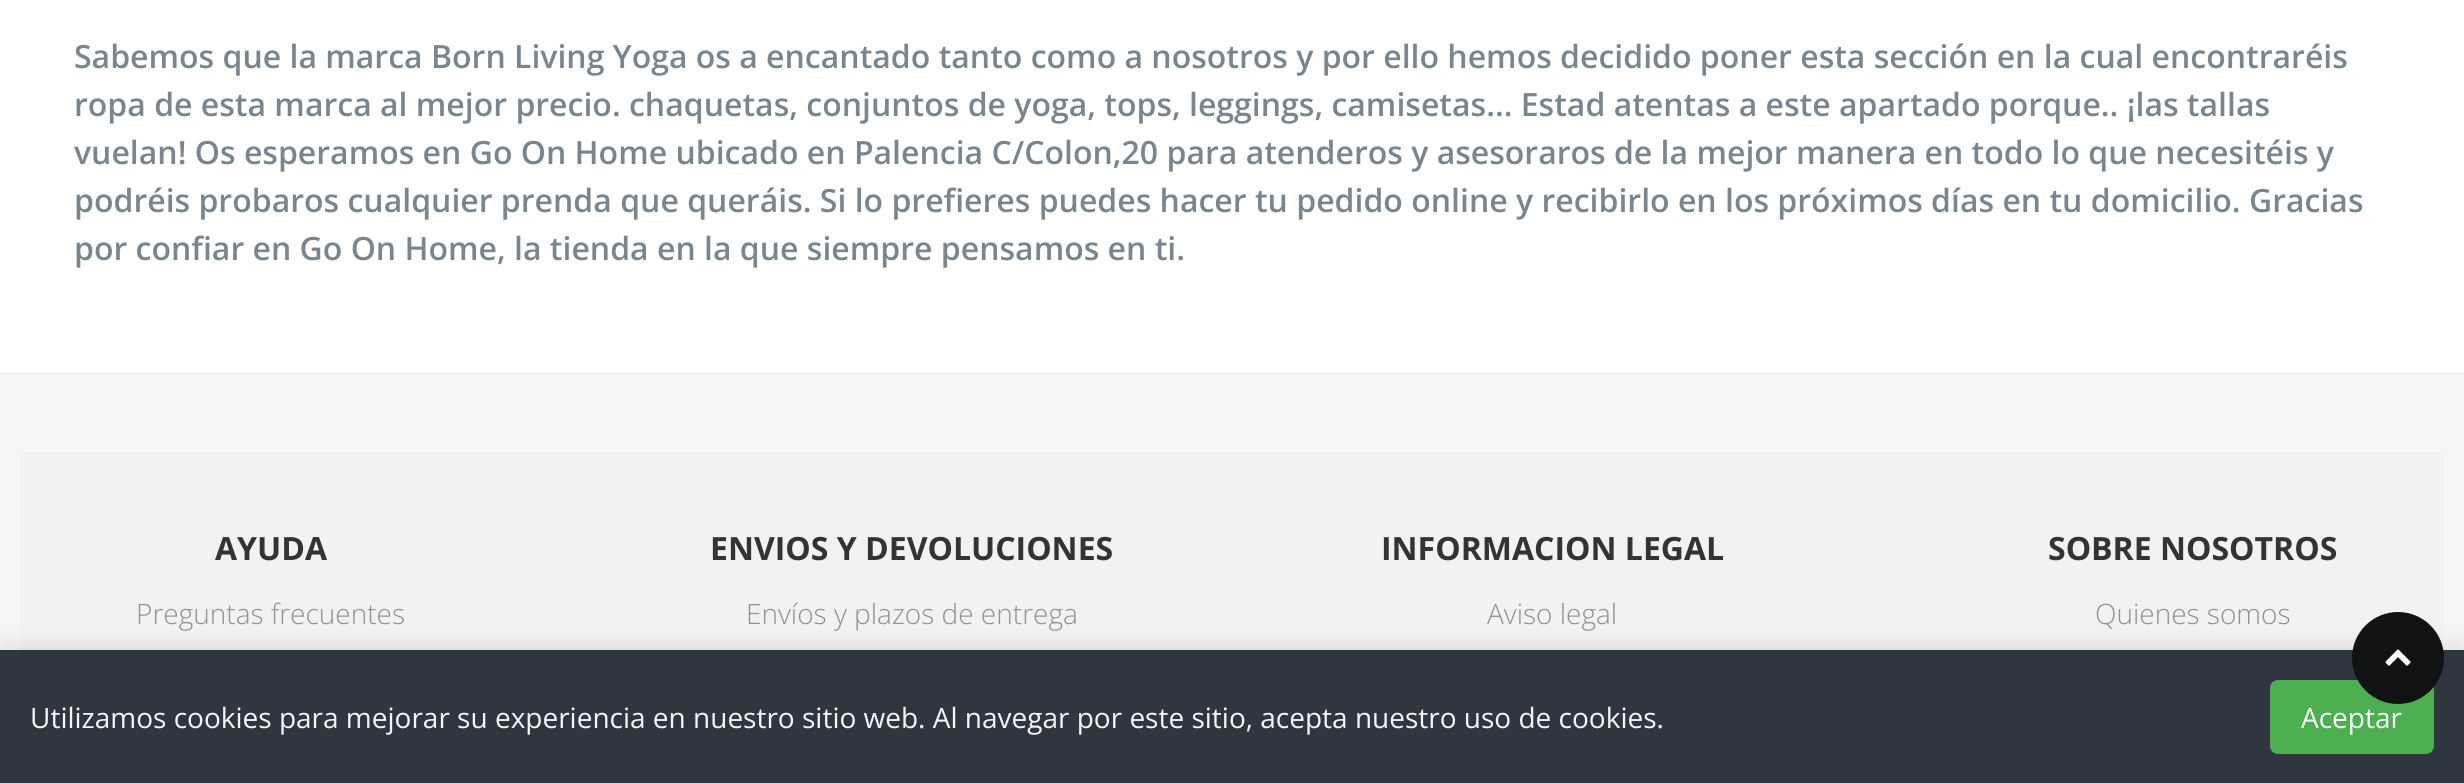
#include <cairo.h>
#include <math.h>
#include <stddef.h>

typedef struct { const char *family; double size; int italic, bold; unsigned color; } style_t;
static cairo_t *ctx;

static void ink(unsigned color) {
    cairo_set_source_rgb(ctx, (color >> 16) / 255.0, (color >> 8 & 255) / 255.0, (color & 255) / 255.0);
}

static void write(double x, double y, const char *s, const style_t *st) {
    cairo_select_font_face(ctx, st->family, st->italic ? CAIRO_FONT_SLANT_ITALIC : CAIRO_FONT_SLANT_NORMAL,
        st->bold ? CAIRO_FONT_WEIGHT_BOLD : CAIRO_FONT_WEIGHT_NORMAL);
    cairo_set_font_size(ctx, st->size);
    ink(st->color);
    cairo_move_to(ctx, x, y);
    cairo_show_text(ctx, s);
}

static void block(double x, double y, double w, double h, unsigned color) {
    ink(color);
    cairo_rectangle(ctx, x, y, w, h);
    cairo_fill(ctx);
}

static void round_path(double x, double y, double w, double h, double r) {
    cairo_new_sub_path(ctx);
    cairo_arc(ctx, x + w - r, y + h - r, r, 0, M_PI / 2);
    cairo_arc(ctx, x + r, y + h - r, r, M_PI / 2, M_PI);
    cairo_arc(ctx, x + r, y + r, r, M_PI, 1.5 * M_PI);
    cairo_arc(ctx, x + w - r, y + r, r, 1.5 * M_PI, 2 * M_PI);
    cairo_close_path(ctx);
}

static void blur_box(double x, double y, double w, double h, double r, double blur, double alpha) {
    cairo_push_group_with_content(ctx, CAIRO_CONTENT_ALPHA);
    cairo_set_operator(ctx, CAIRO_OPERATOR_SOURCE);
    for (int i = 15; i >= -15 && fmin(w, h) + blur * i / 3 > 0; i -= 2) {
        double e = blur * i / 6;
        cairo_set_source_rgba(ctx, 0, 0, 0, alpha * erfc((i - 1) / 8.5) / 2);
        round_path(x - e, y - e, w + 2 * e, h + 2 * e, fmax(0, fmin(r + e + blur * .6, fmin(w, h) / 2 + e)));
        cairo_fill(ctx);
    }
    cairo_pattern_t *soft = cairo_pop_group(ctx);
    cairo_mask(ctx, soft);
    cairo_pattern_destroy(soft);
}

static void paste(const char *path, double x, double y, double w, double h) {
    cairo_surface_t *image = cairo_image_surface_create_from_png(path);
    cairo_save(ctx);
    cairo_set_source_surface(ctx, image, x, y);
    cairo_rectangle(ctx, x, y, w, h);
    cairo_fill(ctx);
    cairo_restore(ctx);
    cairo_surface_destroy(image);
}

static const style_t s1 = {"Open Sans SemiBold", 32, 0, 0, 0x7a858e};
static const style_t s2 = {"Open Sans", 32, 0, 1, 0x333333};
static const style_t s3 = {"Open Sans Light", 28, 0, 0, 0x909195};
static const style_t s4 = {"Open Sans", 28, 0, 0, 0xf5f6fa};
static const style_t s5 = {"Open Sans", 28, 0, 0, 0xffffff};

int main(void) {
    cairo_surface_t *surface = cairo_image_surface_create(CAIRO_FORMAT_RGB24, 2464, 783);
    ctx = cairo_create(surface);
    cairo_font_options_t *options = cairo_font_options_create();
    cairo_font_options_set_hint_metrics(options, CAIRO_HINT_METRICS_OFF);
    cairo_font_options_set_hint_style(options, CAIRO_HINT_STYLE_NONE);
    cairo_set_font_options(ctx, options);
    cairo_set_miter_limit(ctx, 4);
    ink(0xffffff);
    cairo_paint(ctx);
    write(74, 68, "Sabemos que la marca Born Living Yoga os a encantado tanto como a nosotros y por ello hemos decidido poner esta sección en la cual encontraréis", &s1);
    write(74, 116, "ropa de esta marca al mejor precio. chaquetas, conjuntos de yoga, tops, leggings, camisetas... Estad atentas a este apartado porque.. ¡las tallas", &s1);
    write(74, 164, "vuelan! Os esperamos en Go On Home ubicado en Palencia C/Colon,20 para atenderos y asesoraros de la mejor manera en todo lo que necesitéis y", &s1);
    write(74, 212, "podréis probaros cualquier prenda que queráis. Si lo prefieres puedes hacer tu pedido online y recibirlo en los próximos días en tu domicilio. Gracias", &s1);
    write(74, 260, "por confiar en Go On Home, la tienda en la que siempre pensamos en ti.", &s1);
    block(0, 372, 2464, 278, 0xf5f5f5);
    block(20, 452, 2424, 198, 0xf2f2f2);
    write(215, 560, "AYUDA", &s2);
    write(136, 624, "Preguntas frecuentes", &s3);
    write(710, 560, "ENVIOS Y DEVOLUCIONES", &s2);
    write(746, 624, "Envíos y plazos de entrega", &s3);
    write(1381, 560, "INFORMACION LEGAL", &s2);
    write(1487, 624, "Aviso legal", &s3);
    write(2048, 560, "SOBRE NOSOTROS", &s2);
    write(2095, 624, "Quienes somos", &s3);
    ink(0x000000);
    blur_box(0, 646, 2464, 134, 0, 10, 0.1);
    block(0, 650, 2464, 133, 0x2f3640);
    ink(0x4caf50);
    round_path(2270, 680, 164, 74, 8);
    cairo_fill(ctx);
    ink(0x111212);
    cairo_arc(ctx, 2398, 658, 46, 0, 2 * M_PI);
    cairo_fill(ctx);
    paste("pic1.png", 2385, 649, 26, 17);
    write(30, 728, "Utilizamos cookies para mejorar su experiencia en nuestro sitio web. Al navegar por este sitio, acepta nuestro uso de cookies.", &s4);
    write(2301, 728, "Aceptar", &s5);
    cairo_surface_write_to_png(surface, "screenshot.png");
    cairo_font_options_destroy(options);
    cairo_destroy(ctx);
    cairo_surface_destroy(surface);
    return 0;
}
